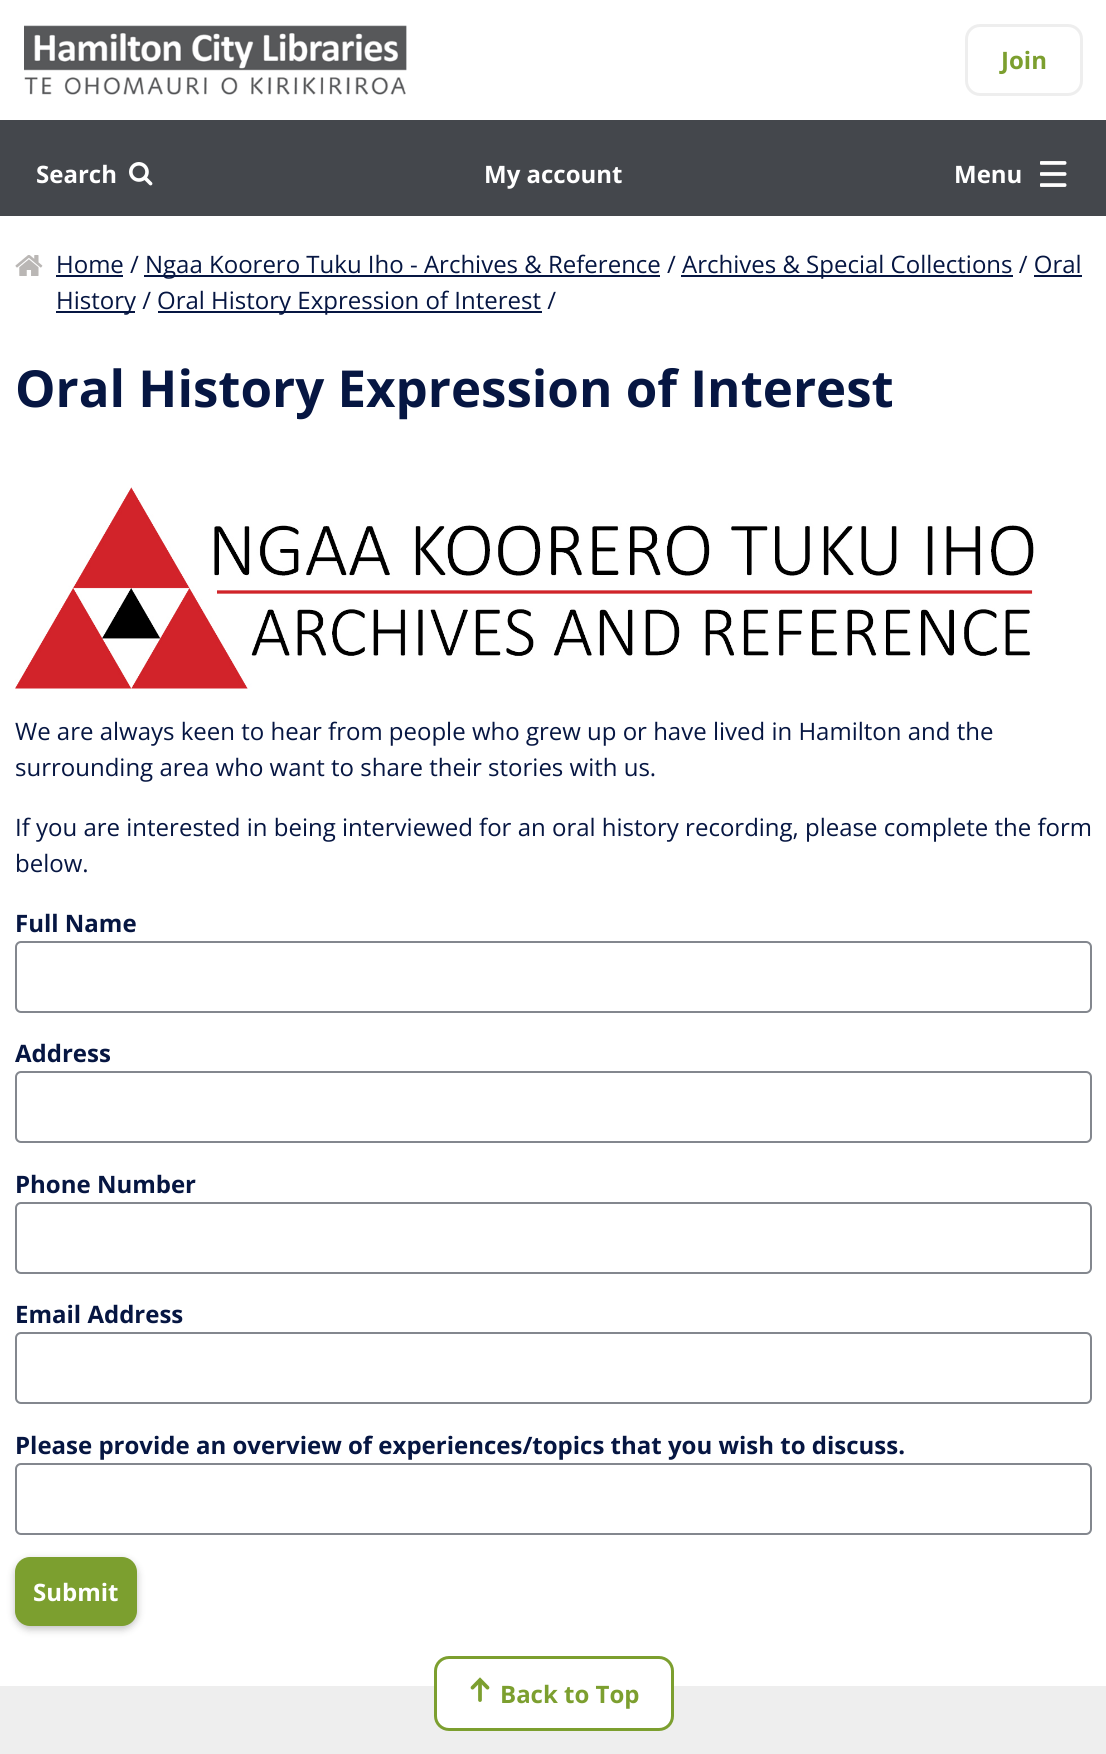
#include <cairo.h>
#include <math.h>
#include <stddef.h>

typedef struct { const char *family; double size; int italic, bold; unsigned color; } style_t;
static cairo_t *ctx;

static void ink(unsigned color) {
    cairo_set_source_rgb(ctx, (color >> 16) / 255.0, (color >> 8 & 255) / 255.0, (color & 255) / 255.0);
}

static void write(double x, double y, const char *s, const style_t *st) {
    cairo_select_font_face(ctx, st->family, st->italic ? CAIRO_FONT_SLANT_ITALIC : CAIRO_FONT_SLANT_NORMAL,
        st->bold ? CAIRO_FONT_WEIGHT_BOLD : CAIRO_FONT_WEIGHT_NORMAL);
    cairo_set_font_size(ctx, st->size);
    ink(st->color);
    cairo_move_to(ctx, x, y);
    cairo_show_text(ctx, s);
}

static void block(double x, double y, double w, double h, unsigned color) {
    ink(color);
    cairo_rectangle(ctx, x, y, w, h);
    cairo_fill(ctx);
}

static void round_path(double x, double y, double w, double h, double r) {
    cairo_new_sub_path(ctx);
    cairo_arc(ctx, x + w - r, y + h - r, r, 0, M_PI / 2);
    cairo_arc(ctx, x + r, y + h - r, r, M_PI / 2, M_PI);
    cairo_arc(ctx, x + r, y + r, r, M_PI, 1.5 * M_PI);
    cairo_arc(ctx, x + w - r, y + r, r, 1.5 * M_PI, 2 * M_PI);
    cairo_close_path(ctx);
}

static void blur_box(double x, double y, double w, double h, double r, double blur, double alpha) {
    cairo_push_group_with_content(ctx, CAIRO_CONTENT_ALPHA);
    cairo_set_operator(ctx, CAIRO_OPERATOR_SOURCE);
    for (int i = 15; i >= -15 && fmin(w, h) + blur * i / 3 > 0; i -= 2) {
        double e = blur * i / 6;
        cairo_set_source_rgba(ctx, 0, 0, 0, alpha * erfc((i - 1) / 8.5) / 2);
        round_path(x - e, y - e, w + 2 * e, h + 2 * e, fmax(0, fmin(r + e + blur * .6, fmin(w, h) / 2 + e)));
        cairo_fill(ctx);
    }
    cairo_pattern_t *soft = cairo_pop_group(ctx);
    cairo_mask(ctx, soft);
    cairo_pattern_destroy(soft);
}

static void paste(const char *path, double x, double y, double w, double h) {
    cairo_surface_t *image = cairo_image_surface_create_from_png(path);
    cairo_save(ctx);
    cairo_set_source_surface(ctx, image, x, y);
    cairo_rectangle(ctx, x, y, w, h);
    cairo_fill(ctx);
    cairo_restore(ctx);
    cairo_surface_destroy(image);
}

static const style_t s1 = {"Open Sans", 24, 0, 1, 0x7c9f2f};
static const style_t s2 = {"Open Sans", 24, 0, 1, 0xffffff};
static const style_t s3 = {"Open Sans", 24, 0, 0, 0x061642};
static const style_t s4 = {"Open Sans", 51, 0, 1, 0x061642};
static const style_t s5 = {"Open Sans", 24, 0, 1, 0x061642};

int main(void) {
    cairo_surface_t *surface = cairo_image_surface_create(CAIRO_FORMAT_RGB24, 1106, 1754);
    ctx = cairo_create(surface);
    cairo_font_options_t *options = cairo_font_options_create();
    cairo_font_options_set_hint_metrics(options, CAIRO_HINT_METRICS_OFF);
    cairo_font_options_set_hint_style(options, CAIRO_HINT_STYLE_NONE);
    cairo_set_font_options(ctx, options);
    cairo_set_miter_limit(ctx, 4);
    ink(0xffffff);
    cairo_paint(ctx);
    paste("pic1.png", 24, 25, 383, 70);
    round_path(966.5, 25.5, 115, 69, 13.5);
    ink(0xeeeeee);
    cairo_set_line_width(ctx, 3);
    cairo_stroke(ctx);
    write(1001, 69, "Join", &s1);
    block(0, 120, 1106, 96, 0x44474c);
    write(36, 183, "Search", &s2);
    paste("pic2.png", 129, 162, 24, 24);
    write(484, 183, "My account", &s2);
    write(954, 183, "Menu", &s2);
    paste("pic3.png", 1040, 161, 27, 26);
    paste("pic4.png", 15, 255, 28, 21);
    write(56, 273, "Home /", &s3);
    block(56, 275, 67, 2, 0x061642);
    block(144, 275, 516, 2, 0x061642);
    write(145, 273, "Ngaa Koorero Tuku Iho - Archives & Reference /", &s3);
    block(681, 275, 332, 2, 0x061642);
    write(682, 273, "Archives & Special Collections / Oral", &s3);
    block(56, 311, 79, 2, 0x061642);
    write(56, 309, "History /", &s3);
    block(1034, 275, 48, 2, 0x061642);
    block(158, 311, 384, 2, 0x061642);
    write(157, 309, "Oral History Expression of Interest /", &s3);
    write(15, 407, "Oral History Expression of Interest", &s4);
    paste("pic5.png", 15, 487, 1019, 202);
    write(15, 740, "We are always keen to hear from people who grew up or have lived in Hamilton and the", &s3);
    write(15, 776, "surrounding area who want to share their stories with us.", &s3);
    write(15, 836, "If you are interested in being interviewed for an oral history recording, please complete the form", &s3);
    write(15, 872, "below.", &s3);
    write(15, 932, "Full Name", &s5);
    round_path(16, 942, 1075, 70, 5);
    ink(0x83878e);
    cairo_set_line_width(ctx, 2);
    cairo_stroke(ctx);
    write(15, 1062, "Address", &s5);
    round_path(16, 1072, 1075, 70, 5);
    ink(0x83878e);
    cairo_stroke(ctx);
    write(15, 1193, "Phone Number", &s5);
    round_path(16, 1203, 1075, 70, 5);
    ink(0x83878e);
    cairo_stroke(ctx);
    write(15, 1323, "Email Address", &s5);
    round_path(16, 1333, 1075, 70, 5);
    ink(0x83878e);
    cairo_stroke(ctx);
    write(15, 1454, "Please provide an overview of experiences/topics that you wish to discuss.", &s5);
    round_path(16, 1464, 1075, 70, 5);
    ink(0x83878e);
    cairo_stroke(ctx);
    ink(0x000000);
    blur_box(15, 1560, 122, 69, 15, 4, 0.25);
    ink(0x7c9f2f);
    round_path(15, 1557, 122, 69, 15);
    cairo_fill(ctx);
    write(33, 1601, "Submit", &s2);
    block(0, 1686, 1106, 68, 0xeeeeee);
    ink(0xffffff);
    round_path(435.5, 1657.5, 237, 72, 13.5);
    cairo_fill_preserve(ctx);
    ink(0x7c9f2f);
    cairo_set_line_width(ctx, 3);
    cairo_stroke(ctx);
    paste("pic6.png", 470, 1677, 20, 25);
    write(500, 1703, "Back to Top", &s1);
    cairo_surface_write_to_png(surface, "screenshot.png");
    cairo_font_options_destroy(options);
    cairo_destroy(ctx);
    cairo_surface_destroy(surface);
    return 0;
}
